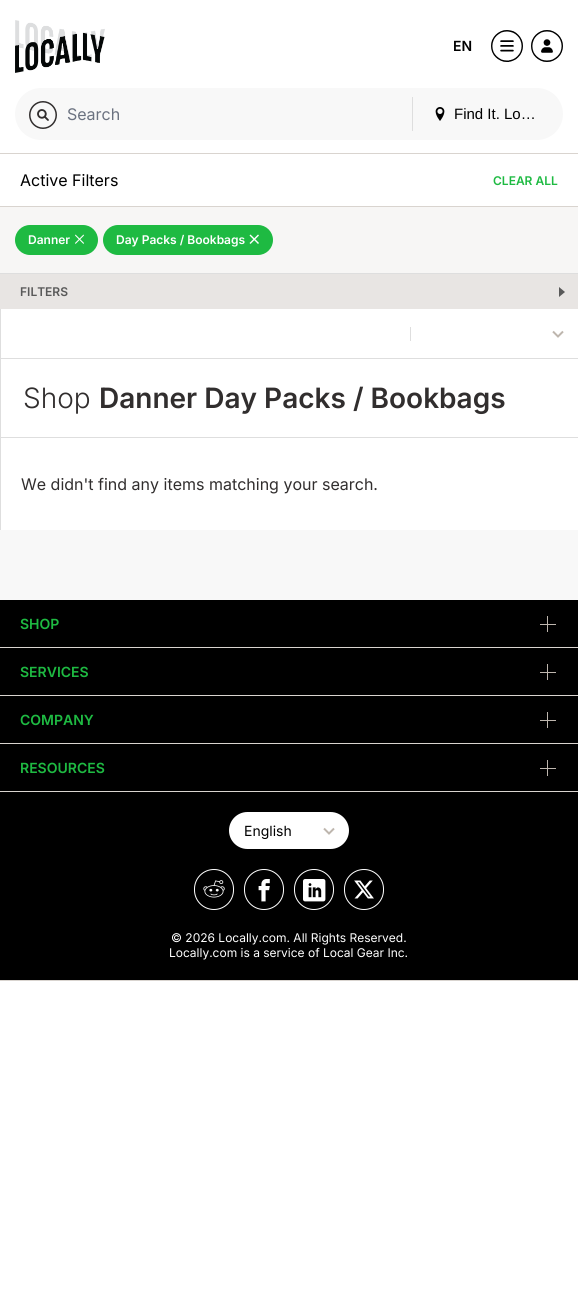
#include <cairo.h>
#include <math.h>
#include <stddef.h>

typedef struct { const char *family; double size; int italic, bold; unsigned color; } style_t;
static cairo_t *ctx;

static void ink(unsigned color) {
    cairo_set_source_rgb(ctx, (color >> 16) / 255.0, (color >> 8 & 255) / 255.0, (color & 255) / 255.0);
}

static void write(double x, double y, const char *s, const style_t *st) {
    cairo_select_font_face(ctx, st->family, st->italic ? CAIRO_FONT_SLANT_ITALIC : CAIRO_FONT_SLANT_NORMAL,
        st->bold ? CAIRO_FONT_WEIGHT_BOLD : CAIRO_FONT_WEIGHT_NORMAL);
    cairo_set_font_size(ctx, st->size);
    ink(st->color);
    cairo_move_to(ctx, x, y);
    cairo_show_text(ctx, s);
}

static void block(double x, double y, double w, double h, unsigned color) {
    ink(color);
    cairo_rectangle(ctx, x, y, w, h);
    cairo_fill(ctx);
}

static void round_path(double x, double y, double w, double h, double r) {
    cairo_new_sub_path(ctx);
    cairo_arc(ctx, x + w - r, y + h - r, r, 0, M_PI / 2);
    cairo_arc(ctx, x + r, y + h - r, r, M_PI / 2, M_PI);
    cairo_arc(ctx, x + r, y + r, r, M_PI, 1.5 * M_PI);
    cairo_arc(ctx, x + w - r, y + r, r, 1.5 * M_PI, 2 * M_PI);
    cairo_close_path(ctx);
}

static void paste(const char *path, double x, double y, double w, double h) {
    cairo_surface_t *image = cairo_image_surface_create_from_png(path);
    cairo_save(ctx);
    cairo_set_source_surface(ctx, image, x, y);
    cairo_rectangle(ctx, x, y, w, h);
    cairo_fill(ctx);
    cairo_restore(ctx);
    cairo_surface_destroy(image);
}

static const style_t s1 = {"Inter SemiBold", 14, 0, 0, 0x000000};
static const style_t s2 = {"Inter", 16, 0, 0, 0x6b7280};
static const style_t s3 = {"Liberation Sans", 15, 0, 0, 0x000000};
static const style_t s4 = {"Inter", 16, 0, 0, 0x000000};
static const style_t s5 = {"Inter SemiBold", 12, 0, 0, 0x1eba42};
static const style_t s6 = {"Inter SemiBold", 12, 0, 0, 0xffffff};
static const style_t s7 = {"Inter SemiBold", 12, 0, 0, 0x595959};
static const style_t s8 = {"Inter Light", 28, 0, 0, 0x312e2e};
static const style_t s9 = {"Inter SemiBold", 28, 0, 0, 0x312e2e};
static const style_t s10 = {"Inter", 16, 0, 0, 0x312e2e};
static const style_t s11 = {"Inter SemiBold", 14, 0, 0, 0x1eba42};
static const style_t s12 = {"Inter", 14, 0, 0, 0x000000};
static const style_t s13 = {"Inter", 12, 0, 0, 0xffffff};

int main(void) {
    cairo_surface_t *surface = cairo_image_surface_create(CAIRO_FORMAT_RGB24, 578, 1301);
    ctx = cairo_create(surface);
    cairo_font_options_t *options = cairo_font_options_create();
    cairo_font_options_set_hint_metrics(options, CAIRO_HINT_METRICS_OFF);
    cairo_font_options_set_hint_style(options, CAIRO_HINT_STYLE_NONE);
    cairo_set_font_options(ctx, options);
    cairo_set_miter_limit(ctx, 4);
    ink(0xffffff);
    cairo_paint(ctx);
    block(0, 153, 578, 1, 0xd9d4cf);
    paste("pic1.png", 15, 20, 90, 53);
    write(453, 51, "EN", &s1);
    paste("pic2.png", 491, 30, 32, 32);
    paste("pic3.png", 531, 30, 32, 32);
    ink(0xf8f8f8);
    round_path(15, 88, 548, 52, 26);
    cairo_fill(ctx);
    paste("pic4.png", 29, 101, 28, 28);
    write(67, 120, "Search", &s2);
    block(412, 97, 1, 34, 0xdedede);
    paste("pic5.png", 435, 107, 10, 14);
    write(454, 119, "Find It. Lo…", &s3);
    block(0, 530, 578, 70, 0xf8f8f8);
    block(0, 273, 578, 1, 0xdedede);
    block(0, 206, 578, 1, 0xd9d4cf);
    write(20, 186, "Active Filters", &s4);
    write(493, 185, "CLEAR ALL", &s5);
    block(0, 207, 578, 66, 0xf7f6f5);
    ink(0x1eba42);
    round_path(15, 225, 83, 30, 15);
    cairo_fill(ctx);
    write(28, 244, "Danner", &s6);
    cairo_new_path(ctx);
    cairo_move_to(ctx, 75, 235.5);
    cairo_line_to(ctx, 75.5, 234.5);
    cairo_line_to(ctx, 84, 243);
    cairo_line_to(ctx, 83.5, 244);
    cairo_close_path(ctx);
    cairo_fill(ctx);
    cairo_new_path(ctx);
    cairo_move_to(ctx, 83.5, 234.5);
    cairo_line_to(ctx, 84, 235.5);
    cairo_line_to(ctx, 75.5, 244);
    cairo_line_to(ctx, 75, 243);
    cairo_close_path(ctx);
    cairo_fill(ctx);
    ink(0x1eba42);
    round_path(103, 225, 170, 30, 15);
    cairo_fill(ctx);
    write(116, 244, "Day Packs / Bookbags", &s6);
    cairo_new_path(ctx);
    cairo_move_to(ctx, 249.5, 235.5);
    cairo_line_to(ctx, 250.5, 234.5);
    cairo_line_to(ctx, 259, 243);
    cairo_line_to(ctx, 258, 244);
    cairo_close_path(ctx);
    cairo_fill(ctx);
    cairo_new_path(ctx);
    cairo_move_to(ctx, 258, 234.5);
    cairo_line_to(ctx, 259, 235.5);
    cairo_line_to(ctx, 250.5, 244);
    cairo_line_to(ctx, 249.5, 243);
    cairo_close_path(ctx);
    cairo_fill(ctx);
    block(0, 274, 578, 35, 0xe8e5e3);
    write(20, 296, "FILTERS", &s7);
    cairo_new_path(ctx);
    cairo_move_to(ctx, 559, 297);
    cairo_line_to(ctx, 559, 287);
    cairo_line_to(ctx, 565, 292);
    cairo_close_path(ctx);
    cairo_fill(ctx);
    block(0, 309, 1, 221, 0xdedede);
    block(1, 358, 577, 1, 0xdedede);
    block(410, 327, 1, 14, 0xdedede);
    cairo_new_path(ctx);
    cairo_move_to(ctx, 563, 331.5);
    cairo_line_to(ctx, 558, 336.5);
    cairo_line_to(ctx, 553, 331.5);
    ink(0xbeb6ae);
    cairo_stroke(ctx);
    block(1, 437, 577, 1, 0xdedede);
    write(23, 408, "Shop", &s8);
    write(99, 408, "Danner Day Packs / Bookbags", &s9);
    write(21, 490, "We didn't find any items matching your search.", &s10);
    block(0, 600, 578, 380, 0x000000);
    block(0, 980, 578, 1, 0xd9d4cf);
    block(0, 647, 578, 1, 0xd9d4cf);
    write(20, 629, "SHOP", &s11);
    block(547, 616, 1, 16, 0xbeb6ae);
    block(540, 624, 16, 1, 0xbeb6ae);
    block(0, 695, 578, 1, 0xd9d4cf);
    write(20, 677, "SERVICES", &s11);
    block(547, 664, 1, 16, 0xbeb6ae);
    block(540, 672, 16, 1, 0xbeb6ae);
    block(0, 743, 578, 1, 0xd9d4cf);
    write(20, 725, "COMPANY", &s11);
    block(547, 712, 1, 16, 0xbeb6ae);
    block(540, 720, 16, 1, 0xbeb6ae);
    block(0, 791, 578, 1, 0xd9d4cf);
    write(20, 773, "RESOURCES", &s11);
    block(547, 760, 1, 16, 0xbeb6ae);
    block(540, 768, 16, 1, 0xbeb6ae);
    ink(0xffffff);
    round_path(229, 812, 120, 37, 18.5);
    cairo_fill(ctx);
    cairo_new_path(ctx);
    cairo_move_to(ctx, 334, 828.5);
    cairo_line_to(ctx, 329, 833.5);
    cairo_line_to(ctx, 324, 828.5);
    ink(0xbeb6ae);
    cairo_stroke(ctx);
    write(244, 836, "English", &s12);
    round_path(194.5, 869.5, 39, 40, 19.5);
    ink(0xffffff);
    cairo_set_line_width(ctx, 1);
    cairo_stroke(ctx);
    paste("pic6.png", 203, 880, 22, 18);
    round_path(244.5, 869.5, 39, 40, 19.5);
    cairo_stroke(ctx);
    paste("pic7.png", 258, 879, 12, 23);
    round_path(294.5, 869.5, 39, 40, 19.5);
    cairo_stroke(ctx);
    paste("pic8.png", 303, 879, 23, 23);
    round_path(344.5, 869.5, 39, 40, 19.5);
    cairo_stroke(ctx);
    paste("pic9.png", 354, 880, 20, 19);
    write(171, 942, "© 2026 Locally.com. All Rights Reserved.", &s13);
    write(169, 957, "Locally.com is a service of Local Gear Inc.", &s13);
    cairo_surface_write_to_png(surface, "screenshot.png");
    cairo_font_options_destroy(options);
    cairo_destroy(ctx);
    cairo_surface_destroy(surface);
    return 0;
}
